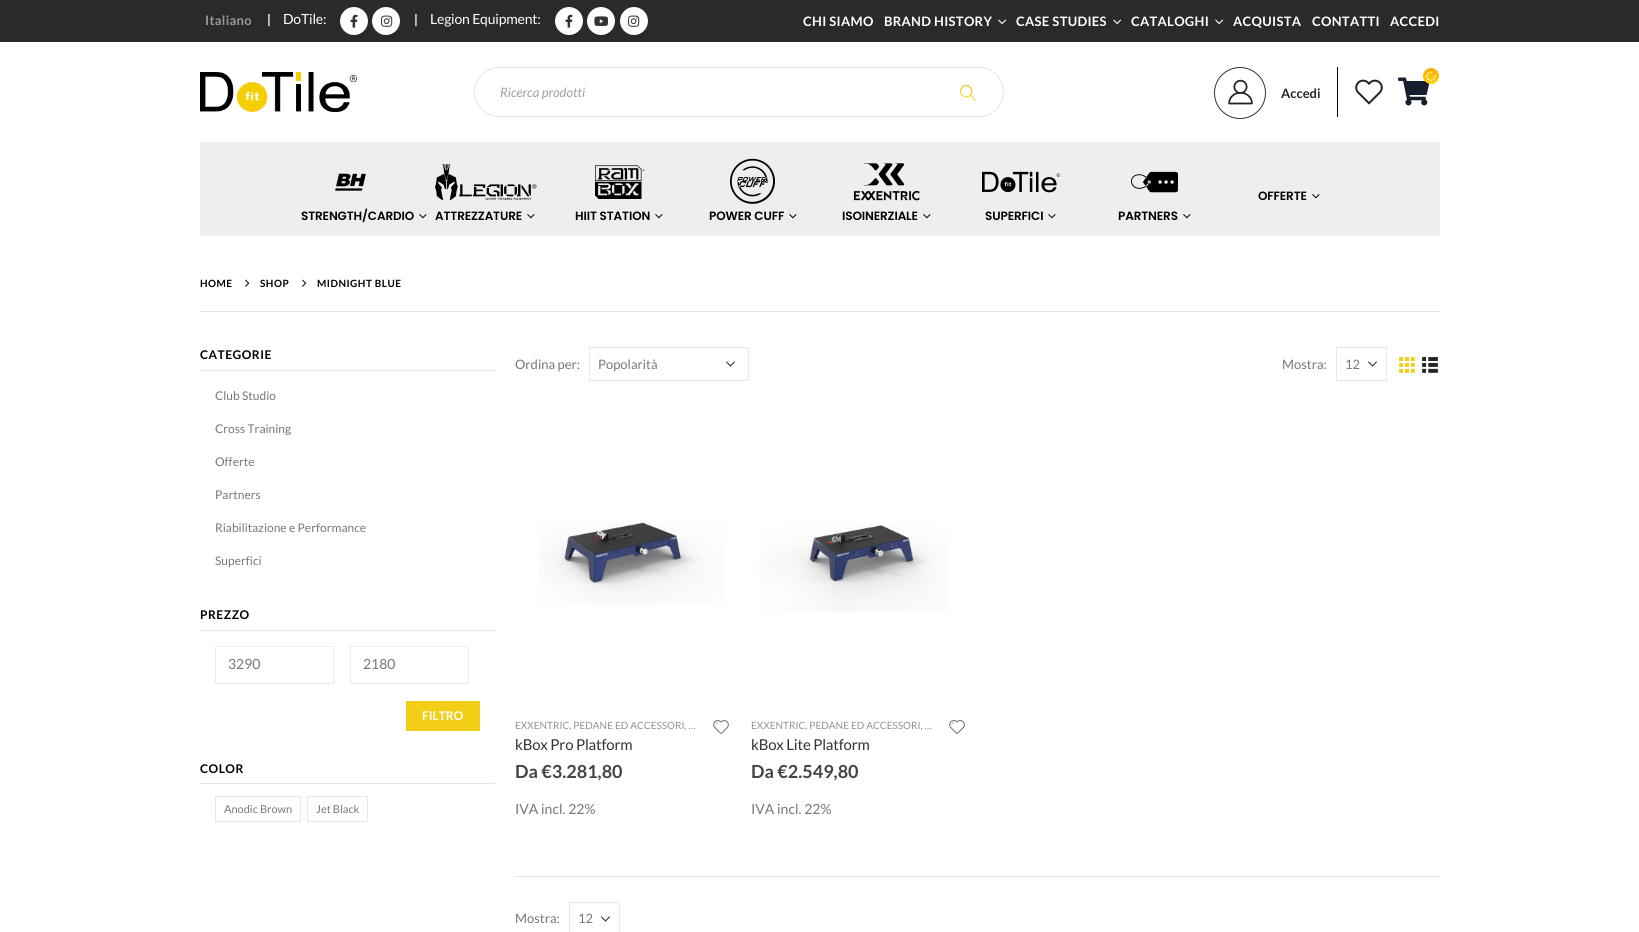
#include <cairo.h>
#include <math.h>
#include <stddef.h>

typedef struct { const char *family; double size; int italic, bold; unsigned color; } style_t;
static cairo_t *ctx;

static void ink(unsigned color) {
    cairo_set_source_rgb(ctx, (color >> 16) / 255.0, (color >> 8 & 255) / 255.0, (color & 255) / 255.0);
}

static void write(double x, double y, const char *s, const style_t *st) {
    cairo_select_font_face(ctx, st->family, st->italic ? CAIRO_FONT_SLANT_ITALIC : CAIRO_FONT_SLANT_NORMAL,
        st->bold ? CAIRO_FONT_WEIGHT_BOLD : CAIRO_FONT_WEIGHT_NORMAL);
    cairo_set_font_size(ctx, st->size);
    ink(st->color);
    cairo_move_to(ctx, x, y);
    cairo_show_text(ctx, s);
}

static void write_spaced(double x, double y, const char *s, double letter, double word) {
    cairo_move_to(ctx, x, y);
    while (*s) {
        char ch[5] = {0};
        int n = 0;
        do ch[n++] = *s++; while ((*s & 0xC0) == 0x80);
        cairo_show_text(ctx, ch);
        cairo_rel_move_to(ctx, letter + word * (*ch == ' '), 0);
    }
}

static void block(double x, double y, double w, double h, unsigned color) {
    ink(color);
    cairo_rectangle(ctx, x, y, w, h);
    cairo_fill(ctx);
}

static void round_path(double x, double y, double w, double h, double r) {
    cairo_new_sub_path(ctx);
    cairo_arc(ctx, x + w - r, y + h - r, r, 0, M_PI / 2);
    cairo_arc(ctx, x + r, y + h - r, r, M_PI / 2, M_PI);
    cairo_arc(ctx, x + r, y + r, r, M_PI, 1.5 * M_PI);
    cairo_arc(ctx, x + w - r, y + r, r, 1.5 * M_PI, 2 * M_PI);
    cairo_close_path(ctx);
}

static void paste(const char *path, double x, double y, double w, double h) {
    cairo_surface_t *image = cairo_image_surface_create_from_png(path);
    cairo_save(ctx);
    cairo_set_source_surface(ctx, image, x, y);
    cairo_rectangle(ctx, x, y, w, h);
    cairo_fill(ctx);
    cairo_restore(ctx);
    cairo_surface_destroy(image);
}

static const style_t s1 = {"Lato", 13, 0, 1, 0xffffff};
static const style_t s2 = {"Lato", 13, 1, 0, 0xa0a0a0};
static const style_t s3 = {"Lato", 13, 0, 1, 0x222529};
static const style_t s4 = {"Lato", 12, 0, 0, 0x777777};
static const style_t s5 = {"Lato", 14, 0, 0, 0x777777};
static const style_t s6 = {"Lato", 12, 0, 1, 0xffffff};
static const style_t s7 = {"Lato", 11, 0, 0, 0x777777};
static const style_t s8 = {"Lato", 13, 0, 0, 0x777777};
static const style_t s9 = {"Lato", 10, 0, 0, 0x929292};
static const style_t s10 = {"Lato", 18, 0, 1, 0x444444};

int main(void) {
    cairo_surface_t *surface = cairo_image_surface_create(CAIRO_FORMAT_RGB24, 1639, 932);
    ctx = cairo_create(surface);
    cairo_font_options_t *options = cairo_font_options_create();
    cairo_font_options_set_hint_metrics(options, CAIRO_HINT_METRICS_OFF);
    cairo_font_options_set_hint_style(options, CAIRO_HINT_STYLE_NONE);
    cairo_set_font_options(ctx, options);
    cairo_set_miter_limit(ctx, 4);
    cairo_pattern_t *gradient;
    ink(0xffffff);
    cairo_paint(ctx);
    block(0, 0, 1639, 42, 0x2a2a2a);
    cairo_select_font_face(ctx, "Lato", CAIRO_FONT_SLANT_NORMAL, CAIRO_FONT_WEIGHT_BOLD);
    cairo_set_font_size(ctx, 13);
    ink(0x999999);
    write_spaced(205, 25, "Italiano", 0.3, 0);
    write(267, 24, "|", &s1);
    cairo_select_font_face(ctx, "Lato", CAIRO_FONT_SLANT_NORMAL, CAIRO_FONT_WEIGHT_NORMAL);
    cairo_set_font_size(ctx, 14);
    write_spaced(283, 24, "DoTile:", -0.2, 0);
    cairo_new_path(ctx);
    cairo_arc(ctx, 354, 21, 14, 0, 2 * M_PI);
    cairo_fill(ctx);
    paste("pic1.png", 350, 14, 8, 14);
    cairo_arc(ctx, 386, 21, 14, 0, 2 * M_PI);
    cairo_fill(ctx);
    paste("pic2.png", 381, 15, 12, 12);
    write(414, 24, "|", &s1);
    cairo_select_font_face(ctx, "Lato", CAIRO_FONT_SLANT_NORMAL, CAIRO_FONT_WEIGHT_NORMAL);
    cairo_set_font_size(ctx, 14);
    write_spaced(430, 24, "Legion Equipment:", -0.2, 0);
    cairo_new_path(ctx);
    cairo_arc(ctx, 569, 21, 14, 0, 2 * M_PI);
    cairo_fill(ctx);
    paste("pic1.png", 565, 14, 8, 14);
    cairo_arc(ctx, 601, 21, 14, 0, 2 * M_PI);
    cairo_fill(ctx);
    paste("pic3.png", 594, 16, 14, 10);
    cairo_arc(ctx, 634, 21, 14, 0, 2 * M_PI);
    cairo_fill(ctx);
    paste("pic2.png", 628, 15, 12, 12);
    cairo_select_font_face(ctx, "Lato", CAIRO_FONT_SLANT_NORMAL, CAIRO_FONT_WEIGHT_BOLD);
    cairo_set_font_size(ctx, 13);
    write_spaced(803, 26, "CHI SIAMO", 0.3, 0);
    write_spaced(884, 26, "BRAND HISTORY", 0.3, 0);
    paste("pic4.png", 998, 19, 9, 6);
    write_spaced(1016, 26, "CASE STUDIES", 0.3, 0);
    paste("pic4.png", 1113, 19, 9, 6);
    write_spaced(1131, 26, "CATALOGHI", 0.3, 0);
    paste("pic4.png", 1215, 19, 9, 6);
    write_spaced(1233, 26, "ACQUISTA", 0.3, 0);
    write_spaced(1312, 26, "CONTATTI", 0.3, 0);
    write_spaced(1390, 26, "ACCEDI", 0.3, 0);
    paste("pic5.png", 200, 72, 157, 40);
    round_path(474.5, 67.5, 529, 49, 24.5);
    ink(0xe7e7e7);
    cairo_set_line_width(ctx, 1);
    cairo_stroke(ctx);
    write(500, 97, "Ricerca prodotti", &s2);
    paste("pic6.png", 960, 85, 16, 16);
    block(1337, 67, 1, 50, 0x000000);
    cairo_arc(ctx, 1240, 93, 25.5, 0, 2 * M_PI);
    ink(0x343434);
    cairo_stroke(ctx);
    paste("pic7.png", 1228, 79, 25, 26);
    write(1281, 98, "Accedi", &s3);
    paste("pic8.png", 1355, 79, 28, 26);
    paste("pic9.png", 1398, 77, 32, 29);
    gradient = cairo_pattern_create_linear(1431, 68, 1431, 84);
    cairo_pattern_add_color_stop_rgba(gradient, 0, 1, 0.667, 0, 1);
    cairo_pattern_add_color_stop_rgba(gradient, 1, 1, 0.835, 0, 1);
    cairo_set_source(ctx, gradient);
    cairo_pattern_destroy(gradient);
    cairo_arc(ctx, 1431, 76, 8, 0, 2 * M_PI);
    cairo_fill(ctx);
    paste("pic10.png", 1426, 71, 10, 11);
    block(200, 142, 1240, 94, 0xeeeeee);
    cairo_select_font_face(ctx, "Poppins SemiBold", CAIRO_FONT_SLANT_NORMAL, CAIRO_FONT_WEIGHT_NORMAL);
    cairo_set_font_size(ctx, 12);
    ink(0x000000);
    write_spaced(1258, 200, "OFFERTE", -0.1, 0);
    paste("pic11.png", 1312, 194, 8, 5);
    paste("pic12.png", 335, 173, 31, 18);
    write_spaced(301, 220, "STRENGTH/CARDIO", -0.1, 0);
    paste("pic11.png", 419, 214, 8, 5);
    paste("pic13.png", 435, 164, 102, 37);
    write_spaced(435, 220, "ATTREZZATURE", -0.1, 0);
    paste("pic11.png", 527, 214, 8, 5);
    paste("pic14.png", 595, 165, 50, 34);
    write_spaced(575, 220, "HIIT STATION", -0.1, 0);
    paste("pic11.png", 655, 214, 8, 5);
    paste("pic15.png", 730, 158, 45, 46);
    write_spaced(709, 220, "POWER CUFF", -0.1, 0);
    paste("pic11.png", 789, 214, 8, 5);
    paste("pic16.png", 854, 163, 66, 38);
    write_spaced(842, 220, "ISOINERZIALE", -0.1, 0);
    paste("pic11.png", 923, 214, 8, 5);
    paste("pic17.png", 982, 171, 79, 22);
    write_spaced(985, 220, "SUPERFICI", -0.1, 0);
    paste("pic11.png", 1048, 214, 8, 5);
    paste("pic18.png", 1131, 171, 47, 22);
    write_spaced(1118, 220, "PARTNERS", -0.1, 0);
    paste("pic11.png", 1183, 214, 8, 5);
    block(200, 311, 1240, 1, 0xe7e7e7);
    cairo_select_font_face(ctx, "Lato", CAIRO_FONT_SLANT_NORMAL, CAIRO_FONT_WEIGHT_BOLD);
    cairo_set_font_size(ctx, 10);
    ink(0x000000);
    write_spaced(200, 287, "HOME", 0.5, 0);
    paste("pic19.png", 245, 279, 5, 8);
    write_spaced(260, 287, "SHOP", 0.5, 0);
    paste("pic19.png", 302, 279, 5, 8);
    write_spaced(317, 287, "MIDNIGHT BLUE", 0.5, 0);
    block(200, 370, 295, 1, 0xe7e7e7);
    cairo_set_font_size(ctx, 12);
    ink(0x000000);
    write_spaced(200, 359, "CATEGORIE", 0.5, 0);
    write(215, 400, "Club Studio", &s4);
    write(215, 433, "Cross Training", &s4);
    write(215, 466, "Offerte", &s4);
    write(215, 499, "Partners", &s4);
    write(215, 532, "Riabilitazione e Performance", &s4);
    write(215, 565, "Superfici", &s4);
    block(200, 630, 295, 1, 0xe7e7e7);
    cairo_select_font_face(ctx, "Lato", CAIRO_FONT_SLANT_NORMAL, CAIRO_FONT_WEIGHT_BOLD);
    ink(0x000000);
    write_spaced(200, 619, "PREZZO", 0.5, 0);
    cairo_rectangle(ctx, 215.5, 646.5, 118, 37);
    ink(0xebebeb);
    cairo_stroke(ctx);
    write(228, 669, "3290", &s5);
    cairo_rectangle(ctx, 350.5, 646.5, 118, 37);
    ink(0xebebeb);
    cairo_stroke(ctx);
    write(363, 669, "2180", &s5);
    block(406, 701, 74, 30, 0xf3ce17);
    write(422, 720, "FILTRO", &s6);
    block(200, 783, 295, 1, 0xe7e7e7);
    ink(0x000000);
    write_spaced(200, 773, "COLOR", 0.5, 0);
    cairo_rectangle(ctx, 215.5, 796.5, 85, 25);
    ink(0xe7e7e7);
    cairo_stroke(ctx);
    write(224, 813, "Anodic Brown", &s7);
    cairo_rectangle(ctx, 307.5, 796.5, 60, 25);
    ink(0xe7e7e7);
    cairo_stroke(ctx);
    write(316, 813, "Jet Black", &s7);
    write(515, 369, "Ordina per:", &s8);
    paste("pic20.png", 726, 361, 9, 6);
    cairo_rectangle(ctx, 589.5, 347.5, 159, 33);
    ink(0xe7e7e7);
    cairo_stroke(ctx);
    write(598, 369, "Popolarità", &s8);
    write(1282, 369, "Mostra:", &s8);
    paste("pic20.png", 1368, 361, 9, 6);
    cairo_rectangle(ctx, 1336.5, 347.5, 50, 33);
    ink(0xe7e7e7);
    cairo_stroke(ctx);
    write(1345, 369, "12", &s8);
    paste("pic21.png", 1399, 357, 16, 16);
    paste("pic22.png", 1422, 357, 16, 16);
    paste("pic23.png", 538, 519, 186, 87);
    write(515, 729, "EXXENTRIC, PEDANE ED ACCESSORI, …", &s9);
    paste("pic24.png", 713, 720, 16, 14);
    cairo_set_font_size(ctx, 15);
    ink(0x323232);
    write_spaced(515, 750, "kBox Pro Platform", -0.2, 0);
    write(515, 778, "Da €3.281,80", &s10);
    write(515, 814, "IVA incl. 22%", &s5);
    paste("pic25.png", 759, 525, 190, 87);
    write(751, 729, "EXXENTRIC, PEDANE ED ACCESSORI, …", &s9);
    paste("pic24.png", 949, 720, 16, 14);
    cairo_set_font_size(ctx, 15);
    ink(0x323232);
    write_spaced(751, 750, "kBox Lite Platform", -0.2, 0);
    write(751, 778, "Da €2.549,80", &s10);
    write(751, 814, "IVA incl. 22%", &s5);
    block(515, 876, 925, 1, 0xe7e7e7);
    write(515, 923, "Mostra:", &s8);
    paste("pic20.png", 601, 916, 9, 6);
    cairo_rectangle(ctx, 569.5, 902.5, 50, 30);
    ink(0xe7e7e7);
    cairo_stroke(ctx);
    write(578, 923, "12", &s8);
    cairo_surface_write_to_png(surface, "screenshot.png");
    cairo_font_options_destroy(options);
    cairo_destroy(ctx);
    cairo_surface_destroy(surface);
    return 0;
}
